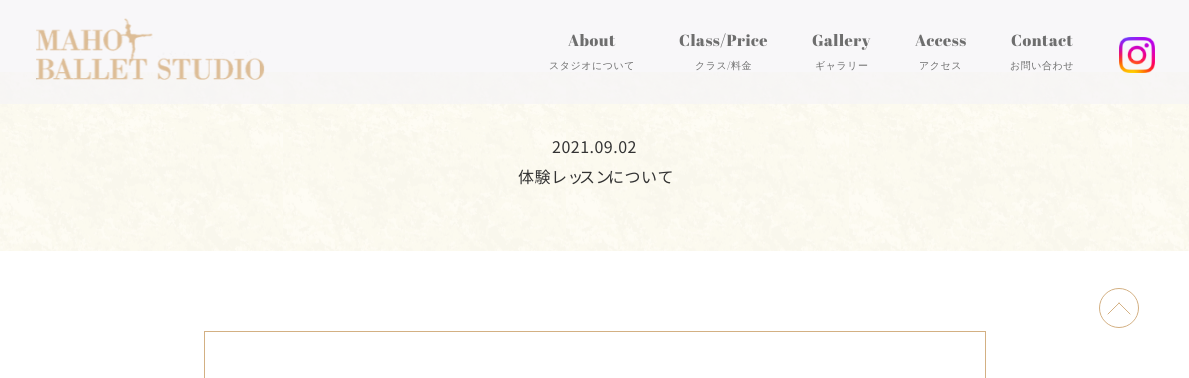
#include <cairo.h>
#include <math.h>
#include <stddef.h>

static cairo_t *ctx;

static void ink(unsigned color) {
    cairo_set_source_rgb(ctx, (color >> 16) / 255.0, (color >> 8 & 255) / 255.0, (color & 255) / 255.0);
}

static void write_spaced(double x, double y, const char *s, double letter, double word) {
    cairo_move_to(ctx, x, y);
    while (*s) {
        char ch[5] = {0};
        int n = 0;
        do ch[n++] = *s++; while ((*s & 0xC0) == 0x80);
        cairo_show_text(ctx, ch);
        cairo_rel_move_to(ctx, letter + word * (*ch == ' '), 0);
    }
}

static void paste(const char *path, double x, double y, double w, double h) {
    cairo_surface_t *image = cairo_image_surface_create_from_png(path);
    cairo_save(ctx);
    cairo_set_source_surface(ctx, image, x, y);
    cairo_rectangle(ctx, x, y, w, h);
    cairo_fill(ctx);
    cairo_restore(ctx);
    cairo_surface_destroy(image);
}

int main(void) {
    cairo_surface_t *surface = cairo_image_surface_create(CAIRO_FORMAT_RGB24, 1189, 378);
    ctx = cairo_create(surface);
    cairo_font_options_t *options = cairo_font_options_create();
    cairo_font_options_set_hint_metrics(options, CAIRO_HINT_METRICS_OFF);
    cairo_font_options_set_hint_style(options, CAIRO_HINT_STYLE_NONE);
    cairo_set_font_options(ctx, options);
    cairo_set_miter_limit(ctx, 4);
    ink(0xffffff);
    cairo_paint(ctx);
    paste("pic3.png", 0, 72, 1189, 179);
    cairo_set_source_rgba(ctx, 0.961, 0.957, 0.969, 0.7);
    cairo_rectangle(ctx, 0, 0, 1189, 104);
    cairo_fill(ctx);
    paste("pic1.png", 36, 18, 229, 62);
    cairo_select_font_face(ctx, "Abril Fatface", CAIRO_FONT_SLANT_NORMAL, CAIRO_FONT_WEIGHT_NORMAL);
    cairo_set_font_size(ctx, 16);
    ink(0x6e6e6e);
    write_spaced(568, 46, "About", 0.5, 0);
    cairo_select_font_face(ctx, "WenQuanYi Zen Hei Medium", CAIRO_FONT_SLANT_NORMAL, CAIRO_FONT_WEIGHT_NORMAL);
    cairo_set_font_size(ctx, 10);
    write_spaced(549, 69, "スタジオについて", 0.5, 0);
    cairo_select_font_face(ctx, "Abril Fatface", CAIRO_FONT_SLANT_NORMAL, CAIRO_FONT_WEIGHT_NORMAL);
    cairo_set_font_size(ctx, 16);
    write_spaced(679, 46, "Class/Price", 0.5, 0);
    cairo_select_font_face(ctx, "WenQuanYi Zen Hei Medium", CAIRO_FONT_SLANT_NORMAL, CAIRO_FONT_WEIGHT_NORMAL);
    cairo_set_font_size(ctx, 10);
    write_spaced(695, 69, "クラス", 0.5, 0);
    cairo_select_font_face(ctx, "Abril Fatface", CAIRO_FONT_SLANT_NORMAL, CAIRO_FONT_WEIGHT_NORMAL);
    write_spaced(727, 69, "/", 0.5, 0);
    cairo_select_font_face(ctx, "WenQuanYi Zen Hei Medium", CAIRO_FONT_SLANT_NORMAL, CAIRO_FONT_WEIGHT_NORMAL);
    write_spaced(731, 69, "料金", 0.5, 0);
    cairo_select_font_face(ctx, "Abril Fatface", CAIRO_FONT_SLANT_NORMAL, CAIRO_FONT_WEIGHT_NORMAL);
    cairo_set_font_size(ctx, 16);
    write_spaced(812, 46, "Gallery", 0.5, 0);
    cairo_select_font_face(ctx, "WenQuanYi Zen Hei Medium", CAIRO_FONT_SLANT_NORMAL, CAIRO_FONT_WEIGHT_NORMAL);
    cairo_set_font_size(ctx, 10);
    write_spaced(815, 69, "ギャラリー", 0.5, 0);
    cairo_select_font_face(ctx, "Abril Fatface", CAIRO_FONT_SLANT_NORMAL, CAIRO_FONT_WEIGHT_NORMAL);
    cairo_set_font_size(ctx, 16);
    write_spaced(915, 46, "Access", 0.5, 0);
    cairo_select_font_face(ctx, "WenQuanYi Zen Hei Medium", CAIRO_FONT_SLANT_NORMAL, CAIRO_FONT_WEIGHT_NORMAL);
    cairo_set_font_size(ctx, 10);
    write_spaced(919, 69, "アクセス", 0.5, 0);
    cairo_select_font_face(ctx, "Abril Fatface", CAIRO_FONT_SLANT_NORMAL, CAIRO_FONT_WEIGHT_NORMAL);
    cairo_set_font_size(ctx, 16);
    write_spaced(1011, 46, "Contact", 0.5, 0);
    cairo_select_font_face(ctx, "WenQuanYi Zen Hei Medium", CAIRO_FONT_SLANT_NORMAL, CAIRO_FONT_WEIGHT_NORMAL);
    cairo_set_font_size(ctx, 10);
    write_spaced(1010, 69, "お問い合わせ", 0.5, 0);
    paste("pic2.png", 1119, 37, 36, 36);
    cairo_select_font_face(ctx, "Noto Sans CJK JP", CAIRO_FONT_SLANT_NORMAL, CAIRO_FONT_WEIGHT_NORMAL);
    cairo_set_font_size(ctx, 16);
    ink(0x333333);
    write_spaced(552, 153, "2021.09.02", 0.5, 0);
    write_spaced(518, 183, "体験レッ", 0.5, 0);
    write_spaced(579, 183, "スン", 0.5, 0);
    write_spaced(608, 183, "について", 0.5, 0);
    paste("pic4.png", 1099, 288, 40, 40);
    cairo_rectangle(ctx, 204.5, 331.5, 781, 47);
    ink(0xd3b083);
    cairo_set_line_width(ctx, 1);
    cairo_stroke(ctx);
    cairo_surface_write_to_png(surface, "screenshot.png");
    cairo_font_options_destroy(options);
    cairo_destroy(ctx);
    cairo_surface_destroy(surface);
    return 0;
}
